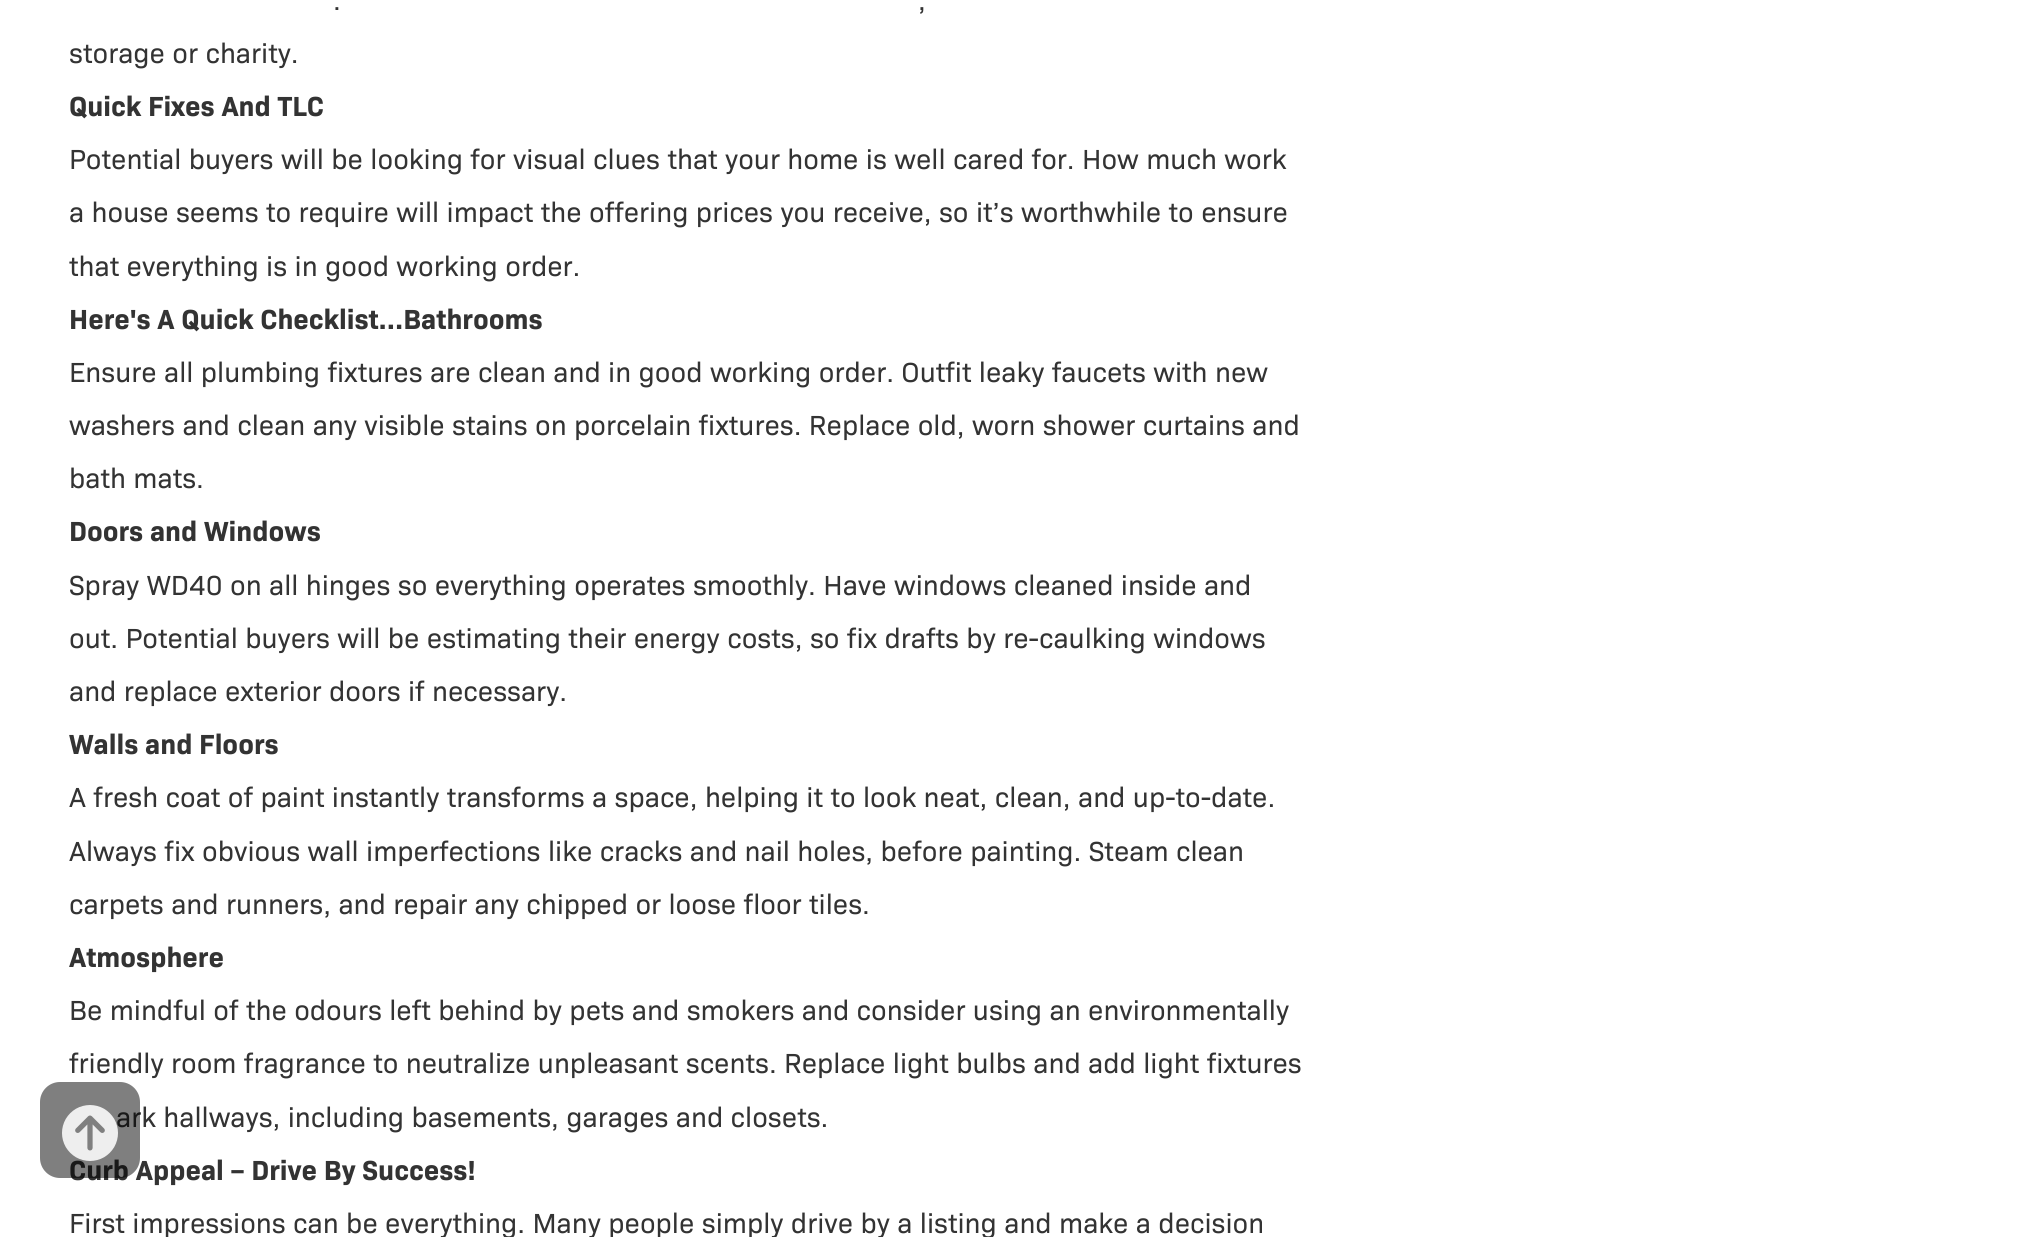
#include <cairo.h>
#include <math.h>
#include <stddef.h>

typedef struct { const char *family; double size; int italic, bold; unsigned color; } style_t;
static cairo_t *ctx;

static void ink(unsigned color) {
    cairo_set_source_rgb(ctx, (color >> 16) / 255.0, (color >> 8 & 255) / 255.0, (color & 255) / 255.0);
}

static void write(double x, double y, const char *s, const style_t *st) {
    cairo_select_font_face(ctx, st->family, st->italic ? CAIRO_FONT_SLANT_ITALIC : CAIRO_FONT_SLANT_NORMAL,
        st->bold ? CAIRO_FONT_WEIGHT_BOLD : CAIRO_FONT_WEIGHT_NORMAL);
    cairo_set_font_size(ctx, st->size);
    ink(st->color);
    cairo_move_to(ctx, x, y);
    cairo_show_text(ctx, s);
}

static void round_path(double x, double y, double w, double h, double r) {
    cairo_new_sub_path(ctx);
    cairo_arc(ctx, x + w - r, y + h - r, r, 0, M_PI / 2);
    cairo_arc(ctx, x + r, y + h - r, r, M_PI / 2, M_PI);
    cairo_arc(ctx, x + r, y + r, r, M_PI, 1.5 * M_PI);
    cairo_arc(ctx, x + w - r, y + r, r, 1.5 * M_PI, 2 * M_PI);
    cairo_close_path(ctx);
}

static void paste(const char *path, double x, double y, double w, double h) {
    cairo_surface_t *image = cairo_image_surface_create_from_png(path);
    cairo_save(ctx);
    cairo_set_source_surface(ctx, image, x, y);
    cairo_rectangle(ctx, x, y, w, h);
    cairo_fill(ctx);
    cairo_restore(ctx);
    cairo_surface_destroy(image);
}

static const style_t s1 = {"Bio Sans", 28, 0, 0, 0x333333};
static const style_t s2 = {"Bio Sans", 28, 0, 1, 0x333333};

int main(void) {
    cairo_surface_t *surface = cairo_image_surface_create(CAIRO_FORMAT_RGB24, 2018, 1237);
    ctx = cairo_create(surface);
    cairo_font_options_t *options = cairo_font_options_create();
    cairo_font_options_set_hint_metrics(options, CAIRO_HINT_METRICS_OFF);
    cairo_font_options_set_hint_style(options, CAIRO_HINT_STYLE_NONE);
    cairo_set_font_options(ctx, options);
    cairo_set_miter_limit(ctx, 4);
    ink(0xffffff);
    cairo_paint(ctx);
    write(333, 10, ".", &s1);
    write(918, 10, ",", &s1);
    write(69, 63, "storage or charity.", &s1);
    write(69, 116, "Quick Fixes And TLC", &s2);
    write(69, 169, "Potential buyers will be looking for visual clues that your home is well cared for. How much work", &s1);
    write(69, 222, "a house seems to require will impact the offering prices you receive, so it’s worthwhile to ensure", &s1);
    write(69, 276, "that everything is in good working order.", &s1);
    write(69, 329, "Here's A Quick Checklist...Bathrooms", &s2);
    write(69, 382, "Ensure all plumbing fixtures are clean and in good working order. Outfit leaky faucets with new", &s1);
    write(69, 435, "washers and clean any visible stains on porcelain fixtures. Replace old, worn shower curtains and", &s1);
    write(69, 488, "bath mats.", &s1);
    write(69, 541, "Doors and Windows", &s2);
    write(69, 595, "Spray WD40 on all hinges so everything operates smoothly. Have windows cleaned inside and", &s1);
    write(69, 648, "out. Potential buyers will be estimating their energy costs, so fix drafts by re-caulking windows", &s1);
    write(69, 701, "and replace exterior doors if necessary.", &s1);
    write(69, 754, "Walls and Floors", &s2);
    write(69, 807, "A fresh coat of paint instantly transforms a space, helping it to look neat, clean, and up-to-date.", &s1);
    write(69, 861, "Always fix obvious wall imperfections like cracks and nail holes, before painting. Steam clean", &s1);
    write(69, 914, "carpets and runners, and repair any chipped or loose floor tiles.", &s1);
    write(69, 967, "Atmosphere", &s2);
    write(69, 1020, "Be mindful of the odours left behind by pets and smokers and consider using an environmentally", &s1);
    write(69, 1073, "friendly room fragrance to neutralize unpleasant scents. Replace light bulbs and add light fixtures", &s1);
    write(116, 1127, "ark hallways, including basements, garages and closets.", &s1);
    write(69, 1180, "Curb Appeal – Drive By Success!", &s2);
    write(69, 1233, "First impressions can be everything. Many people simply drive by a listing and make a decision", &s1);
    cairo_set_source_rgba(ctx, 0, 0, 0, 0.5);
    round_path(40, 1082, 100, 96, 20);
    cairo_fill(ctx);
    paste("pic1.png", 62, 1105, 56, 56);
    cairo_surface_write_to_png(surface, "screenshot.png");
    cairo_font_options_destroy(options);
    cairo_destroy(ctx);
    cairo_surface_destroy(surface);
    return 0;
}
